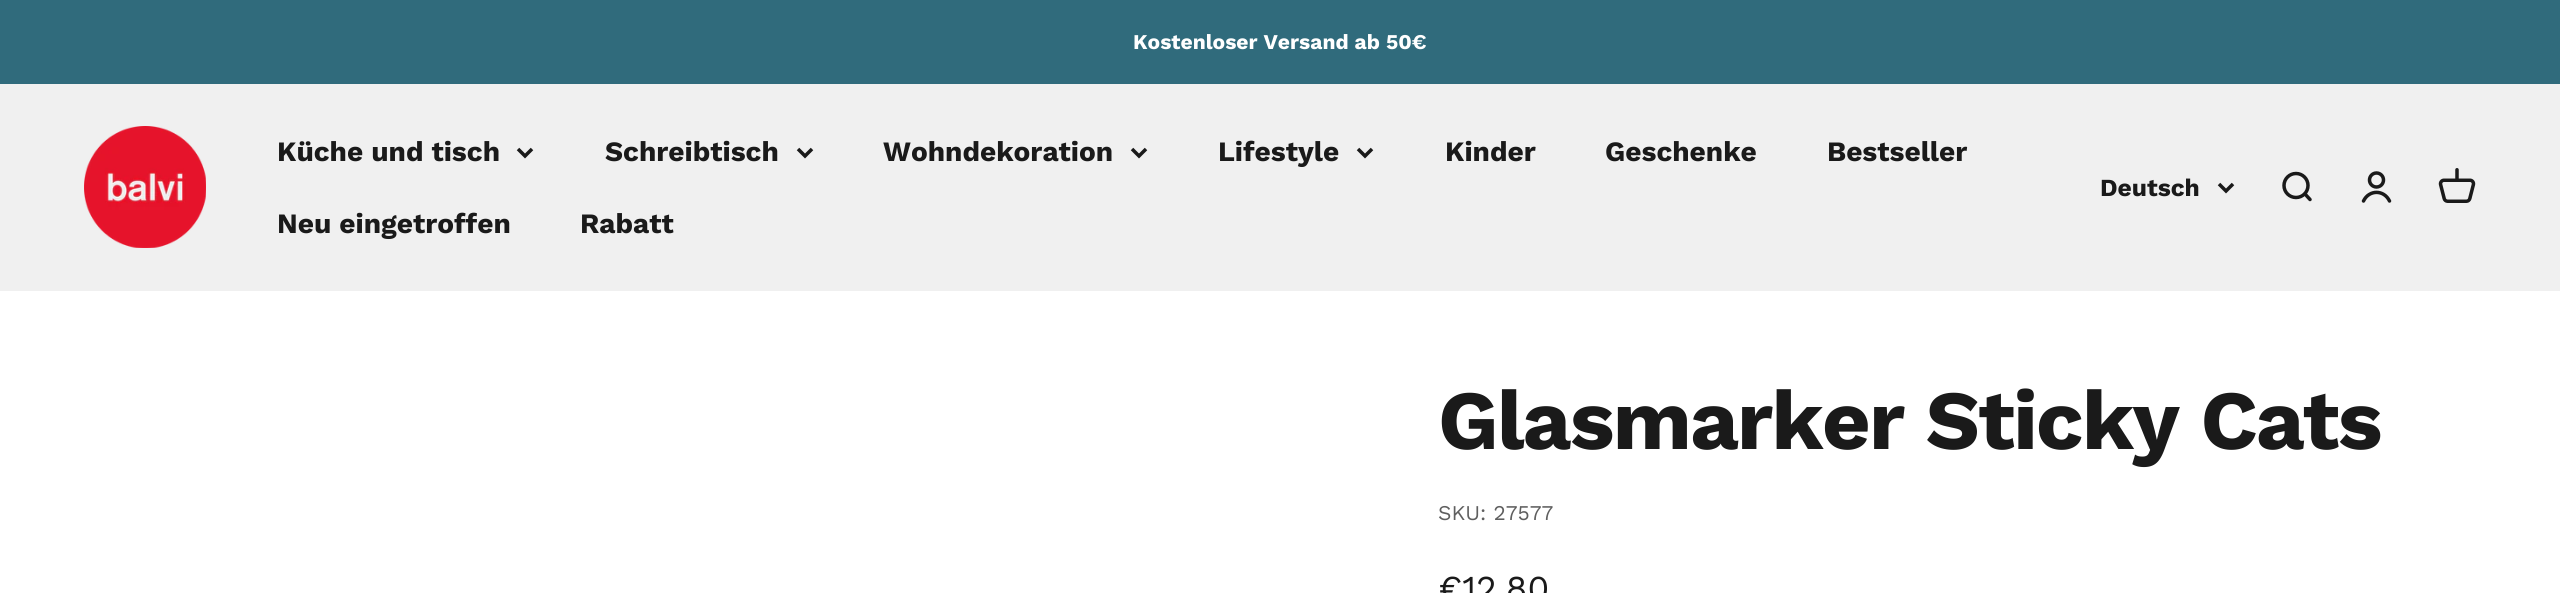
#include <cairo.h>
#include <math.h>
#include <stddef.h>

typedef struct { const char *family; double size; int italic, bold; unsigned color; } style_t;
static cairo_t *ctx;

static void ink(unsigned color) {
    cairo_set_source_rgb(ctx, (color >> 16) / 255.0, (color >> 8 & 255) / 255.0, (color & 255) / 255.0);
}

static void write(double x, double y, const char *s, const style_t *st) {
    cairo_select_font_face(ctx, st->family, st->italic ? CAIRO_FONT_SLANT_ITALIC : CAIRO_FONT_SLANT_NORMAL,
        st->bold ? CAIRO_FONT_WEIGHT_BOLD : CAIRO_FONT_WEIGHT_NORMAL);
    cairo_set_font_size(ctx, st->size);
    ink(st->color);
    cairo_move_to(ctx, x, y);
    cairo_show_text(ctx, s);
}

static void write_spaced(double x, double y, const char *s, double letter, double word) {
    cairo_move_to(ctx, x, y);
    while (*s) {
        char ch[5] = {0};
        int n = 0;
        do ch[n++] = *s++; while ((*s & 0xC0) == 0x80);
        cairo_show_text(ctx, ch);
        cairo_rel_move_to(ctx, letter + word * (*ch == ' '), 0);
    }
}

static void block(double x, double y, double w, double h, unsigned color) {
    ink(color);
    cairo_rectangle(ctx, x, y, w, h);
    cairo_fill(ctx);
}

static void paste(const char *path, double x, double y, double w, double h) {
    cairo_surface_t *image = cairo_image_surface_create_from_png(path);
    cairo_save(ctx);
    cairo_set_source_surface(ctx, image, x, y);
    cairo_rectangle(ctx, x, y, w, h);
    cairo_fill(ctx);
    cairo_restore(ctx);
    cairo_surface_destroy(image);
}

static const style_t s1 = {"Work Sans", 21, 0, 1, 0xffffff};
static const style_t s2 = {"Work Sans", 28, 0, 1, 0x1a1a1a};
static const style_t s3 = {"Work Sans", 24.5, 0, 1, 0x1a1a1a};
static const style_t s4 = {"Work Sans", 21, 0, 0, 0x5f5f5f};
static const style_t s5 = {"Work Sans", 35, 0, 0, 0x1a1a1a};

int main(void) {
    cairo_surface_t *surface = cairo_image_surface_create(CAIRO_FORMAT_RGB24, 2560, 593);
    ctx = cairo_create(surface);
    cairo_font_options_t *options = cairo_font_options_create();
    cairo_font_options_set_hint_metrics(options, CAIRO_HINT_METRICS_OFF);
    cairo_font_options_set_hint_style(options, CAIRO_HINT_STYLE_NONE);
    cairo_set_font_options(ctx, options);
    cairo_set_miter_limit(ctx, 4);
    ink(0xffffff);
    cairo_paint(ctx);
    block(0, 0, 2560, 84, 0x306b7c);
    write(1133, 49, "Kostenloser Versand ab 50€", &s1);
    block(0, 84, 2560, 207, 0xf0f0f0);
    paste("pic1.png", 84, 126, 122, 122);
    write(277, 161, "Küche und tisch", &s2);
    cairo_new_path(ctx);
    cairo_move_to(ctx, 518, 149);
    cairo_line_to(ctx, 525, 156);
    cairo_line_to(ctx, 532, 149);
    cairo_set_line_width(ctx, 3.5);
    cairo_stroke(ctx);
    write(605, 161, "Schreibtisch", &s2);
    cairo_new_path(ctx);
    cairo_move_to(ctx, 798, 149);
    cairo_line_to(ctx, 805, 156);
    cairo_line_to(ctx, 812, 149);
    cairo_stroke(ctx);
    write(883, 161, "Wohndekoration", &s2);
    cairo_new_path(ctx);
    cairo_move_to(ctx, 1132, 149);
    cairo_line_to(ctx, 1139, 156);
    cairo_line_to(ctx, 1146, 149);
    cairo_stroke(ctx);
    write(1218, 161, "Lifestyle", &s2);
    cairo_new_path(ctx);
    cairo_move_to(ctx, 1358, 149);
    cairo_line_to(ctx, 1365, 156);
    cairo_line_to(ctx, 1372, 149);
    cairo_stroke(ctx);
    write(1445, 161, "Kinder", &s2);
    write(1605, 161, "Geschenke", &s2);
    write(1827, 161, "Bestseller", &s2);
    write(277, 233, "Neu eingetroffen", &s2);
    write(580, 233, "Rabatt", &s2);
    write(2100, 196, "Deutsch", &s3);
    cairo_new_path(ctx);
    cairo_move_to(ctx, 2219, 184);
    cairo_line_to(ctx, 2226, 191);
    cairo_line_to(ctx, 2233, 184);
    cairo_stroke(ctx);
    cairo_arc(ctx, 2296, 185.5, 12, 0, 2 * M_PI);
    cairo_stroke(ctx);
    cairo_new_path(ctx);
    cairo_move_to(ctx, 2305, 194);
    cairo_line_to(ctx, 2310, 199.5);
    cairo_set_line_cap(ctx, CAIRO_LINE_CAP_ROUND);
    cairo_set_line_join(ctx, CAIRO_LINE_JOIN_ROUND);
    cairo_stroke(ctx);
    cairo_arc(ctx, 2376.5, 180, 7, 0, 2 * M_PI);
    cairo_set_line_cap(ctx, CAIRO_LINE_CAP_BUTT);
    cairo_set_line_join(ctx, CAIRO_LINE_JOIN_MITER);
    cairo_stroke(ctx);
    cairo_new_path(ctx);
    cairo_move_to(ctx, 2363.5, 201);
    cairo_curve_to(ctx, 2369, 189.5, 2384, 189.5, 2389.5, 201);
    cairo_set_line_cap(ctx, CAIRO_LINE_CAP_ROUND);
    cairo_stroke(ctx);
    paste("pic2.png", 2438, 168, 38, 35);
    cairo_set_font_size(ctx, 84);
    write_spaced(1438, 449, "Glasmarker Sticky Cats", -1.7, 0);
    write(1438, 520, "SKU: 27577", &s4);
    write(1438, 600, "€12,80", &s5);
    cairo_surface_write_to_png(surface, "screenshot.png");
    cairo_font_options_destroy(options);
    cairo_destroy(ctx);
    cairo_surface_destroy(surface);
    return 0;
}
